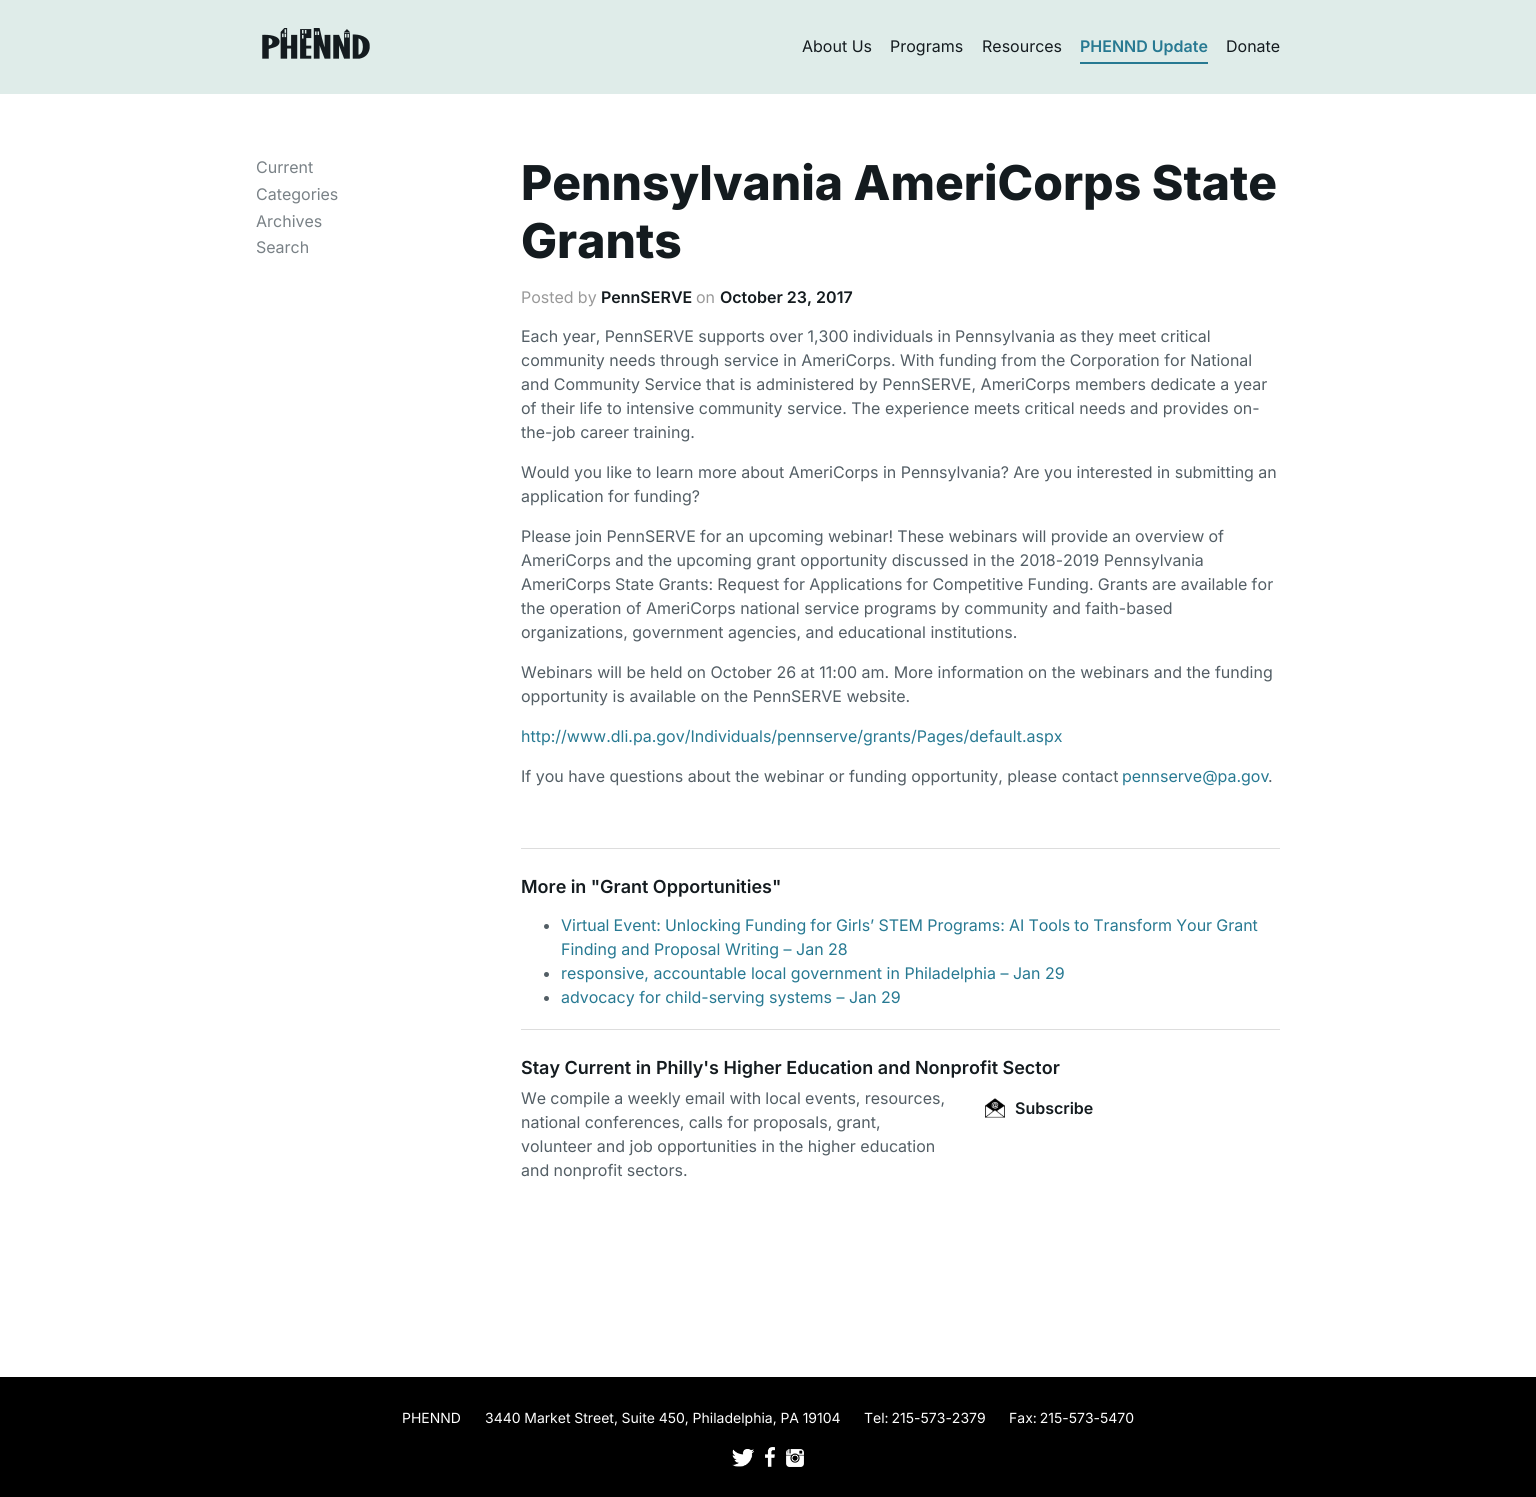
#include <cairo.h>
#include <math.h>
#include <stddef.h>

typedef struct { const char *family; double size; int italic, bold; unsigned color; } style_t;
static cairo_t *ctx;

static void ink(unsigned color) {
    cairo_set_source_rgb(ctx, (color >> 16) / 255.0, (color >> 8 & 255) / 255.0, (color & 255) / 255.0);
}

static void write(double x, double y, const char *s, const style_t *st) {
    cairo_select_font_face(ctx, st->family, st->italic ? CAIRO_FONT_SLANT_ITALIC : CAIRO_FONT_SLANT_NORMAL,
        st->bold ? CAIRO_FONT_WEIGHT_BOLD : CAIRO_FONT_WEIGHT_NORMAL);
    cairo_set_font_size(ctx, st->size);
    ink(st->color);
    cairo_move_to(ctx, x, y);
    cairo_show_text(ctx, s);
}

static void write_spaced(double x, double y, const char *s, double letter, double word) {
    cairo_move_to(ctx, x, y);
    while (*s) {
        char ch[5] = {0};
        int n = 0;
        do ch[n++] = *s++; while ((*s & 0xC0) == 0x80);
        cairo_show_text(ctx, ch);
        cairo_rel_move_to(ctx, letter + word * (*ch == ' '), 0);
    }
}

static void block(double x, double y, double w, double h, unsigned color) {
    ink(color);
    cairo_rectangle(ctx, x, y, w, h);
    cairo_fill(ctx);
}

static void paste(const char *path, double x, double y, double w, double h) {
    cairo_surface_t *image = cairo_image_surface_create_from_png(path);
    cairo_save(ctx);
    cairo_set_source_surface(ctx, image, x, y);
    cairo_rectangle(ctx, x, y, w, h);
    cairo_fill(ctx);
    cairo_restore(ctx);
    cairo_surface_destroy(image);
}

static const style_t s1 = {"Inter", 16, 0, 0, 0x141b1f};
static const style_t s2 = {"Inter SemiBold", 16, 0, 0, 0x277992};
static const style_t s3 = {"Inter", 16, 0, 0, 0x798186};
static const style_t s4 = {"Inter ExtraBold", 48, 0, 0, 0x141b1f};
static const style_t s5 = {"Inter SemiBold", 16, 0, 0, 0x141b1f};
static const style_t s6 = {"Inter", 16, 0, 0, 0x999999};
static const style_t s7 = {"Inter", 16, 0, 0, 0x535e65};
static const style_t s8 = {"Inter", 16, 0, 0, 0x277992};
static const style_t s9 = {"Inter SemiBold", 18, 0, 0, 0x141b1f};
static const style_t s10 = {"Inter", 14, 0, 0, 0xffffff};

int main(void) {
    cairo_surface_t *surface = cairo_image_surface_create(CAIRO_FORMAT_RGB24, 1536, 1497);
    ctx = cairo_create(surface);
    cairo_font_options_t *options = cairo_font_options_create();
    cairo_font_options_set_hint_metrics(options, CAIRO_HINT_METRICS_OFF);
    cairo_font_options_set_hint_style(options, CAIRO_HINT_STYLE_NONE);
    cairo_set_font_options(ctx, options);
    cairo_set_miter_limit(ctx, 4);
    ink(0xffffff);
    cairo_paint(ctx);
    block(0, 0, 1536, 94, 0xdfece9);
    paste("pic1.png", 262, 28, 108, 31);
    write(802, 52, "About Us", &s1);
    write(890, 52, "Programs", &s1);
    write(982, 52, "Resources", &s1);
    block(1080, 62, 128, 2, 0x277992);
    write(1080, 52, "PHENND Update", &s2);
    write(1226, 52, "Donate", &s1);
    write(256, 173, "Current", &s3);
    write(256, 200, "Categories", &s3);
    write(256, 227, "Archives", &s3);
    write(256, 253, "Search", &s3);
    write(521, 200, "Pennsylvania AmeriCorps State", &s4);
    write(521, 258, "Grants", &s4);
    cairo_select_font_face(ctx, "Inter", CAIRO_FONT_SLANT_NORMAL, CAIRO_FONT_WEIGHT_NORMAL);
    cairo_set_font_size(ctx, 16);
    ink(0x999999);
    write_spaced(521, 303, "Posted by", 0, -0.25);
    write(601, 303, "PennSERVE", &s5);
    write(696, 303, "on", &s6);
    write(720, 303, "October 23, 2017", &s5);
    cairo_select_font_face(ctx, "Inter", CAIRO_FONT_SLANT_NORMAL, CAIRO_FONT_WEIGHT_NORMAL);
    ink(0x535e65);
    write_spaced(521, 342, "Each year, PennSERVE supports over 1,300 individuals in Pennsylvania as they meet critical", 0, -0.25);
    write(521, 366, "community needs through service in AmeriCorps. With funding from the Corporation for National", &s7);
    write(521, 390, "and Community Service that is administered by PennSERVE, AmeriCorps members dedicate a year", &s7);
    write(521, 414, "of their life to intensive community service. The experience meets critical needs and provides on-", &s7);
    write(521, 438, "the-job career training.", &s7);
    write_spaced(521, 478, "Would you like to learn more about AmeriCorps in Pennsylvania? Are you interested in submitting an", 0, -0.1);
    write_spaced(521, 502, "application for funding?", 0, -0.1);
    write_spaced(521, 542, "Please join PennSERVE for an upcoming webinar! These webinars will provide an overview of", 0, -0.25);
    write(521, 566, "AmeriCorps and the upcoming grant opportunity discussed in the 2018-2019 Pennsylvania", &s7);
    write_spaced(521, 590, "AmeriCorps State Grants: Request for Applications for Competitive Funding. Grants are available for", 0, -0.25);
    write(521, 614, "the operation of AmeriCorps national service programs by community and faith-based", &s7);
    write(521, 638, "organizations, government agencies, and educational institutions.", &s7);
    write(521, 678, "Webinars will be held on October 26 at 11:00 am. More information on the webinars and the funding", &s7);
    write(521, 702, "opportunity is available on the PennSERVE website.", &s7);
    write(521, 742, "http://www.dli.pa.gov/Individuals/pennserve/grants/Pages/default.aspx", &s8);
    write(521, 782, "If you have questions about the webinar or funding opportunity, please contact", &s7);
    write(1122, 782, "pennserve@pa.gov", &s8);
    write(1268, 782, ".", &s7);
    block(521, 848, 759, 1, 0xdddddd);
    cairo_select_font_face(ctx, "Inter SemiBold", CAIRO_FONT_SLANT_NORMAL, CAIRO_FONT_WEIGHT_NORMAL);
    cairo_set_font_size(ctx, 18);
    ink(0x141b1f);
    write_spaced(521, 893, "More in \"", 0, -0.25);
    write(600, 893, "Grant Opportunities\"", &s9);
    ink(0x535e65);
    cairo_new_path(ctx);
    cairo_arc(ctx, 546.5, 926.5, 2.5, 0, 2 * M_PI);
    cairo_fill(ctx);
    cairo_select_font_face(ctx, "Inter", CAIRO_FONT_SLANT_NORMAL, CAIRO_FONT_WEIGHT_NORMAL);
    cairo_set_font_size(ctx, 16);
    ink(0x277992);
    write_spaced(561, 931, "Virtual Event: Unlocking Funding for Girls’ STEM Programs: AI Tools to Transform Your Grant", 0, -0.4);
    write(561, 955, "Finding and Proposal Writing – Jan 28", &s8);
    ink(0x535e65);
    cairo_new_path(ctx);
    cairo_arc(ctx, 546.5, 974.5, 2.5, 0, 2 * M_PI);
    cairo_fill(ctx);
    write(561, 979, "responsive, accountable local government in Philadelphia – Jan 29", &s8);
    ink(0x535e65);
    cairo_new_path(ctx);
    cairo_arc(ctx, 546.5, 998.5, 2.5, 0, 2 * M_PI);
    cairo_fill(ctx);
    write(561, 1003, "advocacy for child-serving systems – Jan 29", &s8);
    block(521, 1029, 759, 1, 0xdddddd);
    write(521, 1074, "Stay Current in Philly's Higher Education and Nonprofit Sector", &s9);
    cairo_select_font_face(ctx, "Inter", CAIRO_FONT_SLANT_NORMAL, CAIRO_FONT_WEIGHT_NORMAL);
    cairo_set_font_size(ctx, 16);
    ink(0x535e65);
    write_spaced(521, 1104, "We compile a weekly email with local events, resources,", 0, -0.25);
    write_spaced(521, 1128, "national conferences, calls for proposals, grant,", 0, -0.25);
    write(521, 1152, "volunteer and job opportunities in the higher education", &s7);
    write_spaced(521, 1176, "and nonprofit sectors.", 0, -0.25);
    paste("pic2.png", 985, 1098, 20, 20);
    write(1015, 1114, "Subscribe", &s5);
    block(0, 1377, 1536, 120, 0x000000);
    write(402, 1423, "PHENND", &s10);
    write_spaced(485, 1423, "3440 Market Street, Suite 450, Philadelphia, PA 19104", 0, -0.25);
    write_spaced(864, 1423, "Tel: 215-573-2379", 0, -1);
    write_spaced(1009, 1423, "Fax: 215-573-5470", 0, -1);
    paste("pic3.png", 732, 1449, 22, 18);
    paste("pic4.png", 765, 1447, 10, 20);
    paste("pic5.png", 786, 1449, 18, 18);
    cairo_surface_write_to_png(surface, "screenshot.png");
    cairo_font_options_destroy(options);
    cairo_destroy(ctx);
    cairo_surface_destroy(surface);
    return 0;
}
